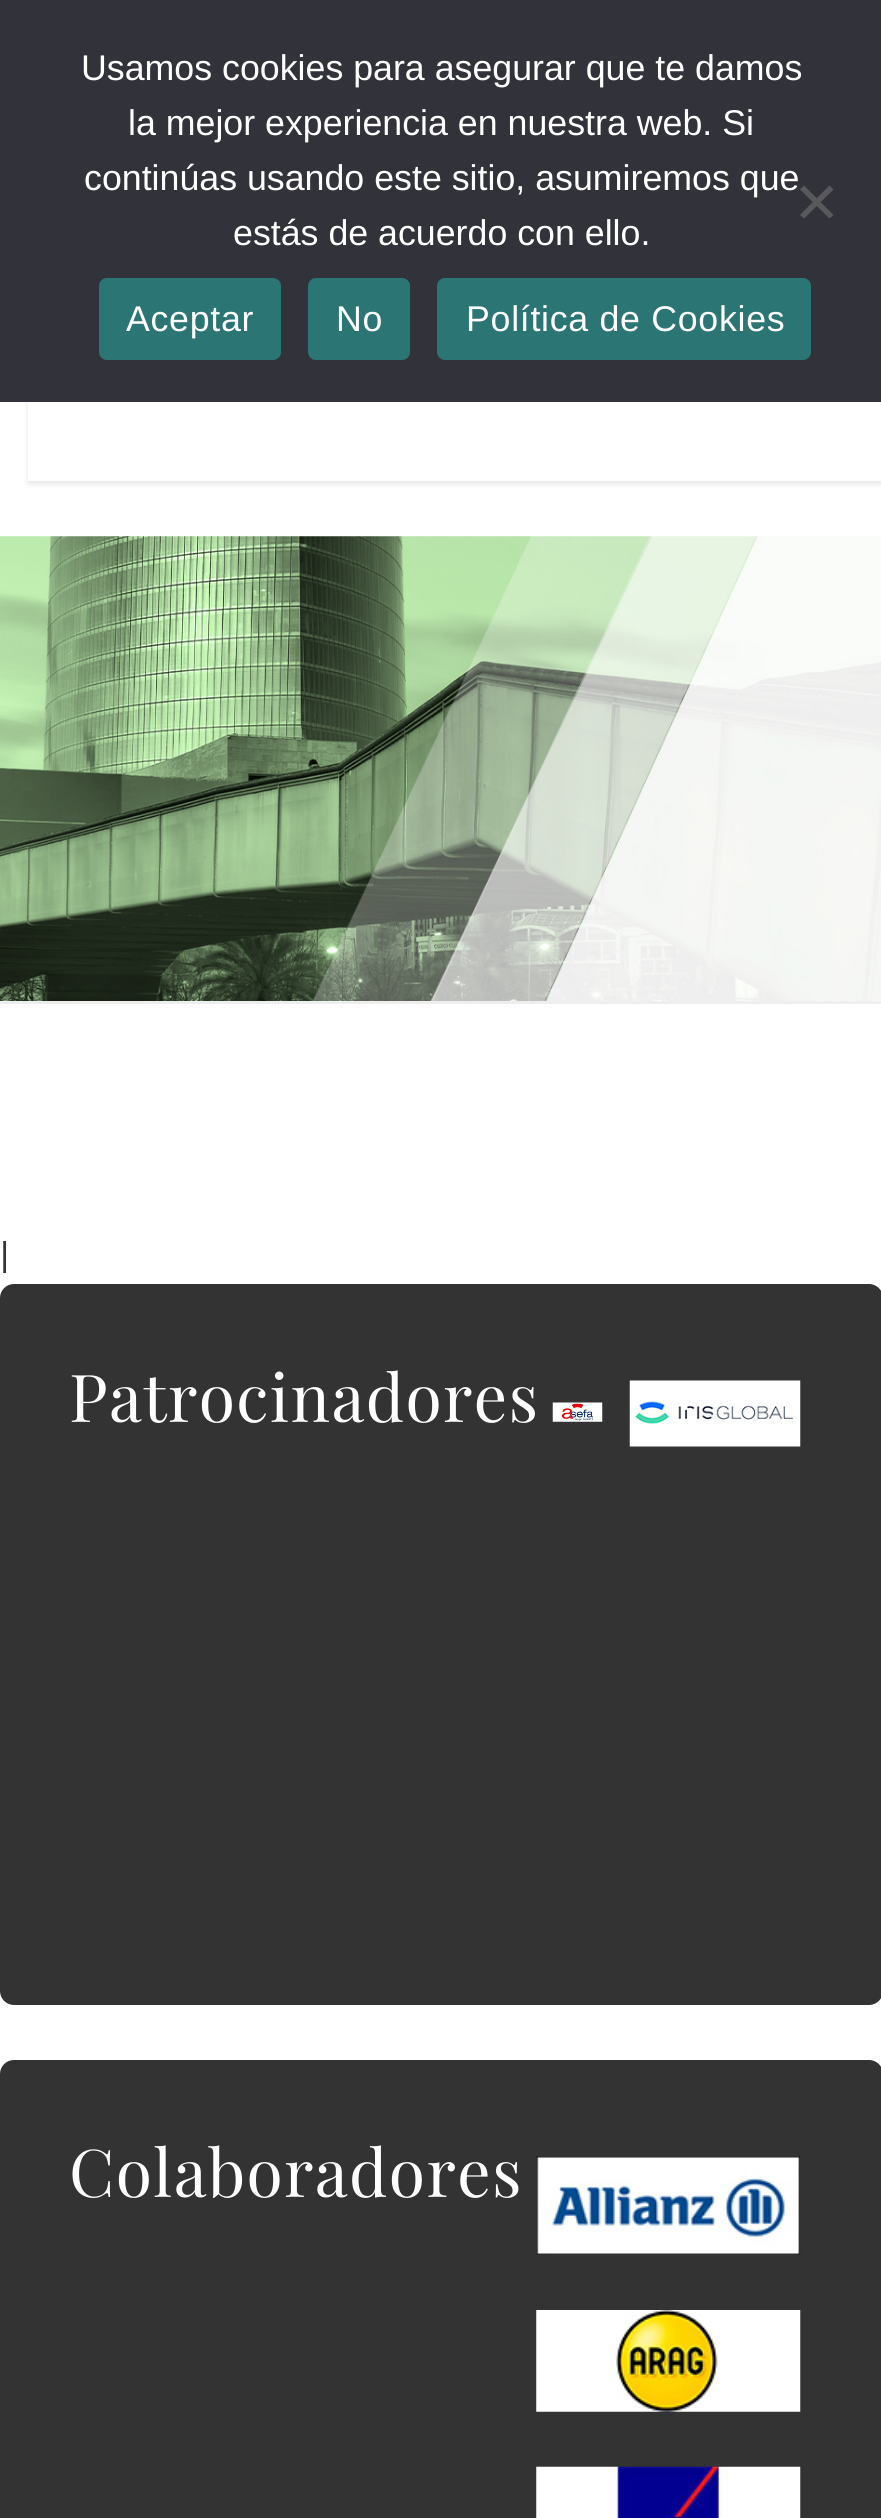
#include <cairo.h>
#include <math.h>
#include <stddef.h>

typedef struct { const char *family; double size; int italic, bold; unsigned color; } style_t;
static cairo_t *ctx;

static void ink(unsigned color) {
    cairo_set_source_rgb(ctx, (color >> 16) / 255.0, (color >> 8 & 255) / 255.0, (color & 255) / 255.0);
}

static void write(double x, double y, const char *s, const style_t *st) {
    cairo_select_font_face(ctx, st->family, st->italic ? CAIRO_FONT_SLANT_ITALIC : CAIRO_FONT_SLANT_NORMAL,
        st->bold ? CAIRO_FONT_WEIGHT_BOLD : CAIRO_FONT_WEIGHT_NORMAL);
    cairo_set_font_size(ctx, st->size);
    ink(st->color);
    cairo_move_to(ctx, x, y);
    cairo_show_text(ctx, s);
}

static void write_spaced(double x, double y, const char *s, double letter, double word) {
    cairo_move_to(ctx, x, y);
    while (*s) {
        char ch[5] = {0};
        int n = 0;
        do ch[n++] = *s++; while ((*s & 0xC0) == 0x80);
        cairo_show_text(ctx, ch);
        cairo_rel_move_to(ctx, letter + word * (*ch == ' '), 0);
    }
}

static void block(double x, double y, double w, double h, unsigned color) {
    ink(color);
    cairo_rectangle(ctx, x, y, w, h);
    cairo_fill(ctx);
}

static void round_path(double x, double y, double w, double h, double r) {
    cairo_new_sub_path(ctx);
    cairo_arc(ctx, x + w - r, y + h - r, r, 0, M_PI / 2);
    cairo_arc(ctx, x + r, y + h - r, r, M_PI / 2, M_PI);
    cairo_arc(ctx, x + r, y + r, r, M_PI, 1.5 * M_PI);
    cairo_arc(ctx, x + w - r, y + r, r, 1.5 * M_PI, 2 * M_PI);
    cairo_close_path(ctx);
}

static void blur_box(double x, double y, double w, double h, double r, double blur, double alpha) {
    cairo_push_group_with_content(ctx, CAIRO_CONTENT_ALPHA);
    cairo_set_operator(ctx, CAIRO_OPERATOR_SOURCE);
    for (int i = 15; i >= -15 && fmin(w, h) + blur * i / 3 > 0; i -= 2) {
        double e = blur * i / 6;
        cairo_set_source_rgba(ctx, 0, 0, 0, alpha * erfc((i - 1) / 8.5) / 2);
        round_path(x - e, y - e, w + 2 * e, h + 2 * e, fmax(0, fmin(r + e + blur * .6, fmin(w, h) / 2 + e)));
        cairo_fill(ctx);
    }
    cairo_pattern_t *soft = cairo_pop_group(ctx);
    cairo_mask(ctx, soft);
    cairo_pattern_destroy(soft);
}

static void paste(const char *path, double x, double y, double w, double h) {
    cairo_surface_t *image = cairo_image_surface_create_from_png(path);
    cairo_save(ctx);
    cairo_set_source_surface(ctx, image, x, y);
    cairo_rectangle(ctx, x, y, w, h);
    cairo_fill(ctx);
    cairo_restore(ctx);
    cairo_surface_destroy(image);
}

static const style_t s1 = {"Liberation Sans", 35.75, 0, 0, 0xffffff};
static const style_t s2 = {"Roboto", 38, 0, 0, 0x333333};

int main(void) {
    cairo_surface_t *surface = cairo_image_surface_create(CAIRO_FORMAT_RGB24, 881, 2518);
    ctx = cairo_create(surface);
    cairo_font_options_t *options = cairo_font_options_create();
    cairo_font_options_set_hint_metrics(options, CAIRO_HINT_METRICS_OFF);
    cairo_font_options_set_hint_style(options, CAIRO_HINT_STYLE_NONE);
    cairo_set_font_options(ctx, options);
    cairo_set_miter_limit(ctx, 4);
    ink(0xffffff);
    cairo_paint(ctx);
    cairo_save(ctx);
    cairo_set_fill_rule(ctx, CAIRO_FILL_RULE_EVEN_ODD);
    cairo_new_path(ctx);
    cairo_move_to(ctx, 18, 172);
    cairo_line_to(ctx, 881, 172);
    cairo_line_to(ctx, 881, 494);
    cairo_line_to(ctx, 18, 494);
    cairo_close_path(ctx);
    cairo_move_to(ctx, 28, 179);
    cairo_line_to(ctx, 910, 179);
    cairo_line_to(ctx, 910, 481);
    cairo_line_to(ctx, 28, 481);
    cairo_close_path(ctx);
    cairo_clip(ctx);
    ink(0x000000);
    blur_box(28, 182, 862, 302, 0, 3, 0.1);
    cairo_restore(ctx);
    block(0, 0, 881, 402, 0x32323a);
    write(81, 80, "Usamos cookies para asegurar que te damos", &s1);
    write(128, 135, "la mejor experiencia en nuestra web. Si", &s1);
    write(84, 190, "continúas usando este sitio, asumiremos que", &s1);
    write(233, 245, "estás de acuerdo con ello.", &s1);
    ink(0x59595d);
    cairo_new_path(ctx);
    cairo_move_to(ctx, 829.5, 185.5);
    cairo_line_to(ctx, 833.5, 189.5);
    cairo_line_to(ctx, 804, 218.5);
    cairo_line_to(ctx, 800, 215);
    cairo_close_path(ctx);
    cairo_fill(ctx);
    cairo_new_path(ctx);
    cairo_move_to(ctx, 800, 189.5);
    cairo_line_to(ctx, 804, 185.5);
    cairo_line_to(ctx, 833.5, 215);
    cairo_line_to(ctx, 829.5, 218.5);
    cairo_close_path(ctx);
    cairo_fill(ctx);
    ink(0x2c7575);
    round_path(99, 278, 182, 82, 8);
    cairo_fill(ctx);
    ink(0xffffff);
    write_spaced(126, 331, "Aceptar", 0.7, 0);
    ink(0x2c7575);
    round_path(308, 278, 102, 82, 8);
    cairo_fill(ctx);
    ink(0xffffff);
    write_spaced(336, 331, "No", 0.7, 0);
    ink(0x2c7575);
    round_path(437, 278, 374, 82, 8);
    cairo_fill(ctx);
    ink(0xffffff);
    write_spaced(466, 331, "Política de Cookies", 0.7, 0);
    paste("pic1.png", 0, 536, 881, 465);
    block(0, 1001, 881, 3, 0xeeeeee);
    write(0, 1268, "|", &s2);
    round_path(0, 1284, 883, 721, 14);
    cairo_fill(ctx);
    cairo_select_font_face(ctx, "Playfair Display", CAIRO_FONT_SLANT_NORMAL, CAIRO_FONT_WEIGHT_NORMAL);
    cairo_set_font_size(ctx, 66);
    ink(0xffffff);
    write_spaced(69, 1422, "Patrocinadores", 1.4, 0);
    paste("pic2.png", 552, 1402, 51, 20);
    paste("pic3.png", 629, 1380, 172, 67);
    ink(0x333333);
    round_path(0, 2060, 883, 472, 14);
    cairo_fill(ctx);
    ink(0xffffff);
    write_spaced(69, 2197, "Colaboradores", 1.4, 0);
    paste("pic4.png", 536, 2156, 265, 99);
    paste("pic5.png", 536, 2310, 265, 102);
    paste("pic6.png", 536, 2466, 265, 52);
    cairo_surface_write_to_png(surface, "screenshot.png");
    cairo_font_options_destroy(options);
    cairo_destroy(ctx);
    cairo_surface_destroy(surface);
    return 0;
}
